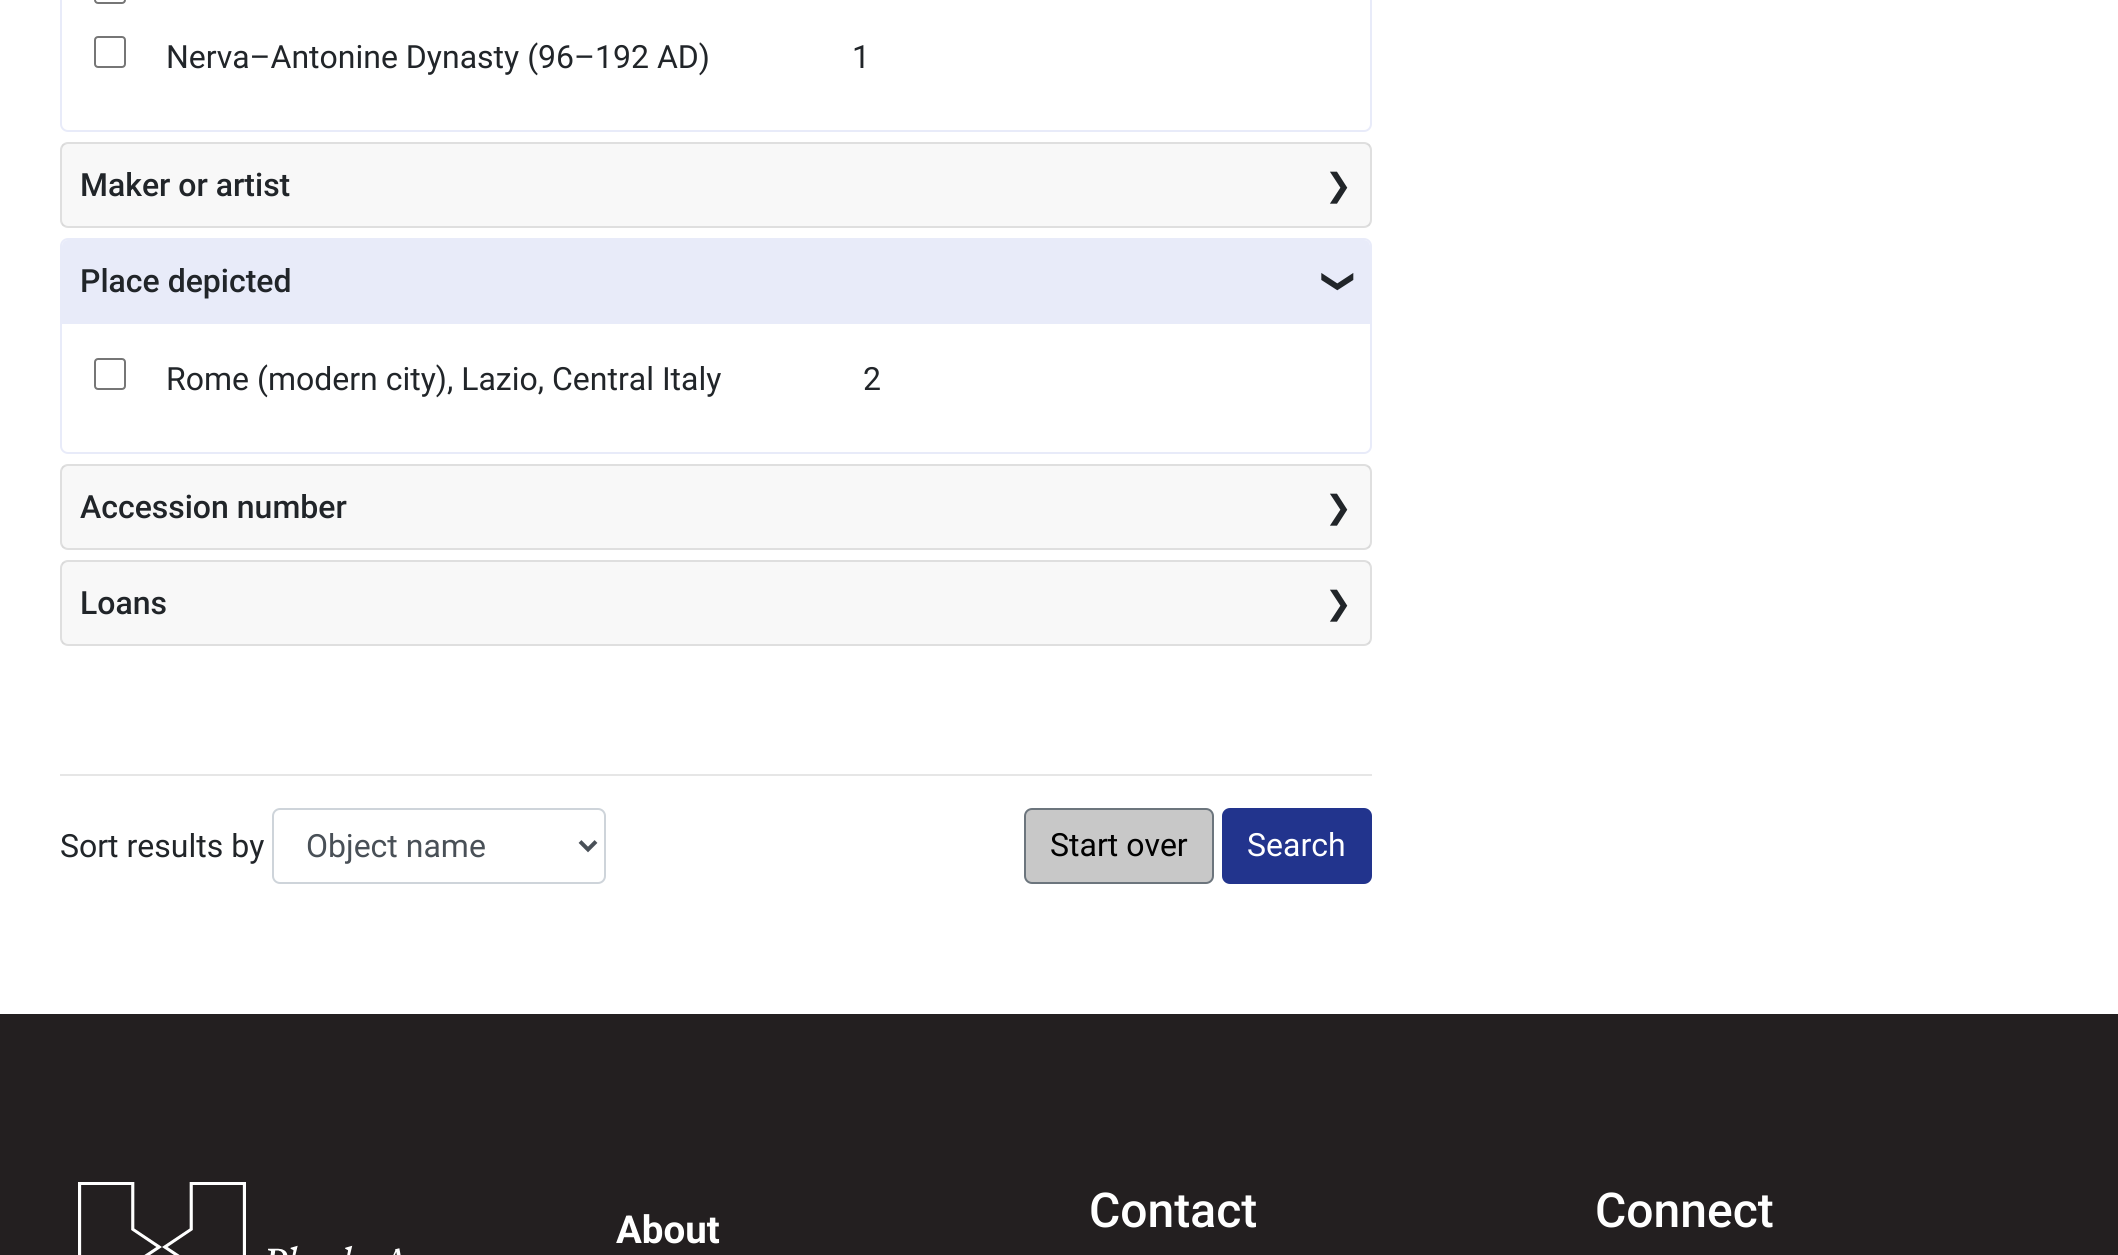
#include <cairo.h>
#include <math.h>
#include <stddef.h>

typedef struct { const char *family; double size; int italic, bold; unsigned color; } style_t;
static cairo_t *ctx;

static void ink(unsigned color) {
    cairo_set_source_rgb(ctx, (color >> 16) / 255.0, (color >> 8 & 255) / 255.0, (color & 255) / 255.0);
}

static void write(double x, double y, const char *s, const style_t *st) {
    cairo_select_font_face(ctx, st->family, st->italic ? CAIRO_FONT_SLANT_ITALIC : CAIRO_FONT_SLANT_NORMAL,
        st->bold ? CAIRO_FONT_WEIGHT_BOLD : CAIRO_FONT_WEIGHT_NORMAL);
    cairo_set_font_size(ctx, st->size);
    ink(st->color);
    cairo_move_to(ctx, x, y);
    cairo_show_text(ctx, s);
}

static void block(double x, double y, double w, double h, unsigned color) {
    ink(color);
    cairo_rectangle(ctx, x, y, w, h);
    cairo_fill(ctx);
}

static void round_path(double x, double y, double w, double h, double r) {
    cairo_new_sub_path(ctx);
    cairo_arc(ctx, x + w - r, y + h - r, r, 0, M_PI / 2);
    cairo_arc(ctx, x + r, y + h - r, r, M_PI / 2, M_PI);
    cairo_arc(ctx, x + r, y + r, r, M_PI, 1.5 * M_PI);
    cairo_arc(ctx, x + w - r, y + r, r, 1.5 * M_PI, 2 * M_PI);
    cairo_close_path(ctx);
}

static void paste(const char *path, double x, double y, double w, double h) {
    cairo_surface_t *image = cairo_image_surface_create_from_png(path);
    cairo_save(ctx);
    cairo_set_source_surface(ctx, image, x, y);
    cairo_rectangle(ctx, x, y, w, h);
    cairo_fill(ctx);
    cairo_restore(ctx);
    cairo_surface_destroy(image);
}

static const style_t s1 = {"Roboto", 32, 0, 0, 0x212529};
static const style_t s2 = {"Roboto Medium", 32, 0, 0, 0x212529};
static const style_t s3 = {"DejaVu Sans", 32, 0, 0, 0x212529};
static const style_t s4 = {"Roboto", 32, 0, 0, 0x495057};
static const style_t s5 = {"Roboto", 32, 0, 0, 0x000000};
static const style_t s6 = {"Roboto", 32, 0, 0, 0xffffff};
static const style_t s7 = {"Roboto", 38.5, 0, 1, 0xffffff};
static const style_t s8 = {"Roboto Medium", 48, 0, 0, 0xffffff};

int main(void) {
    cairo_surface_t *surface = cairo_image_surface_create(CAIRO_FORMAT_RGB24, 2118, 1255);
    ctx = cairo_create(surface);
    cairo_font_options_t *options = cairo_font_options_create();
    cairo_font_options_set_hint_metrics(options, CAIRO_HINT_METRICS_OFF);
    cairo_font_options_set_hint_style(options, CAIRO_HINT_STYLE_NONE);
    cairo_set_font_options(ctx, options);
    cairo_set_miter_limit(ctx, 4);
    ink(0xffffff);
    cairo_paint(ctx);
    round_path(61, -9, 1310, 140, 7);
    ink(0xe8ebf9);
    cairo_stroke(ctx);
    round_path(95, -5, 30, 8, 3);
    ink(0x767676);
    cairo_stroke(ctx);
    round_path(95, 37, 30, 30, 3);
    cairo_stroke(ctx);
    write(166, 68, "Nerva–Antonine Dynasty (96–192 AD)", &s1);
    write(852, 68, "1", &s1);
    round_path(61, 143, 1310, 84, 7);
    ink(0xdfdfdf);
    cairo_stroke(ctx);
    cairo_set_source_rgba(ctx, 0, 0, 0, 0.03);
    cairo_rectangle(ctx, 62, 144, 1308, 82);
    cairo_fill(ctx);
    write(80, 196, "Maker or artist", &s2);
    write(1325, 196, "❯", &s3);
    round_path(61, 239, 1310, 214, 7);
    ink(0xe8ebf9);
    cairo_stroke(ctx);
    cairo_new_path(ctx);
    cairo_move_to(ctx, 68, 240);
    cairo_line_to(ctx, 1364, 240);
    cairo_curve_to(ctx, 1367.5, 240, 1370, 242.5, 1370, 246);
    cairo_line_to(ctx, 1370, 324);
    cairo_line_to(ctx, 62, 324);
    cairo_line_to(ctx, 62, 246);
    cairo_curve_to(ctx, 62, 242.5, 64.5, 240, 68, 240);
    cairo_close_path(ctx);
    cairo_fill(ctx);
    write(80, 292, "Place depicted", &s2);
    cairo_save(ctx);
    cairo_translate(ctx, 1329, 268);
    cairo_rotate(ctx, 90 * M_PI / 180);
    write(0, 0, "❯", &s3);
    cairo_restore(ctx);
    round_path(95, 359, 30, 30, 3);
    ink(0x767676);
    cairo_stroke(ctx);
    write(166, 390, "Rome (modern city), Lazio, Central Italy", &s1);
    write(863, 390, "2", &s1);
    round_path(61, 465, 1310, 84, 7);
    ink(0xdfdfdf);
    cairo_stroke(ctx);
    cairo_set_source_rgba(ctx, 0, 0, 0, 0.03);
    cairo_rectangle(ctx, 62, 466, 1308, 82);
    cairo_fill(ctx);
    write(80, 518, "Accession number", &s2);
    write(1325, 518, "❯", &s3);
    round_path(61, 561, 1310, 84, 7);
    ink(0xdfdfdf);
    cairo_stroke(ctx);
    cairo_set_source_rgba(ctx, 0, 0, 0, 0.03);
    cairo_rectangle(ctx, 62, 562, 1308, 82);
    cairo_fill(ctx);
    write(80, 614, "Loans", &s2);
    write(1325, 614, "❯", &s3);
    block(60, 774, 1312, 2, 0xe6e6e6);
    write(60, 857, "Sort results by", &s1);
    round_path(273, 809, 332, 74, 7);
    ink(0xced4da);
    cairo_stroke(ctx);
    cairo_new_path(ctx);
    cairo_move_to(ctx, 580, 841.5);
    cairo_line_to(ctx, 588, 849.5);
    cairo_line_to(ctx, 596, 841.5);
    ink(0x495057);
    cairo_set_line_width(ctx, 4);
    cairo_stroke(ctx);
    write(306, 857, "Object name", &s4);
    ink(0xc8c8c8);
    round_path(1025, 809, 188, 74, 7);
    cairo_fill_preserve(ctx);
    ink(0x6c757d);
    cairo_set_line_width(ctx, 2);
    cairo_stroke(ctx);
    write(1050, 856, "Start over", &s5);
    ink(0x22348d);
    round_path(1223, 809, 148, 74, 7);
    cairo_fill_preserve(ctx);
    cairo_stroke(ctx);
    write(1247, 856, "Search", &s6);
    block(0, 1014, 2118, 241, 0x231f20);
    paste("pic1.png", 78, 1182, 323, 73);
    write(616, 1243, "About", &s7);
    write(1089, 1227, "Contact", &s8);
    write(1595, 1227, "Connect", &s8);
    cairo_surface_write_to_png(surface, "screenshot.png");
    cairo_font_options_destroy(options);
    cairo_destroy(ctx);
    cairo_surface_destroy(surface);
    return 0;
}
